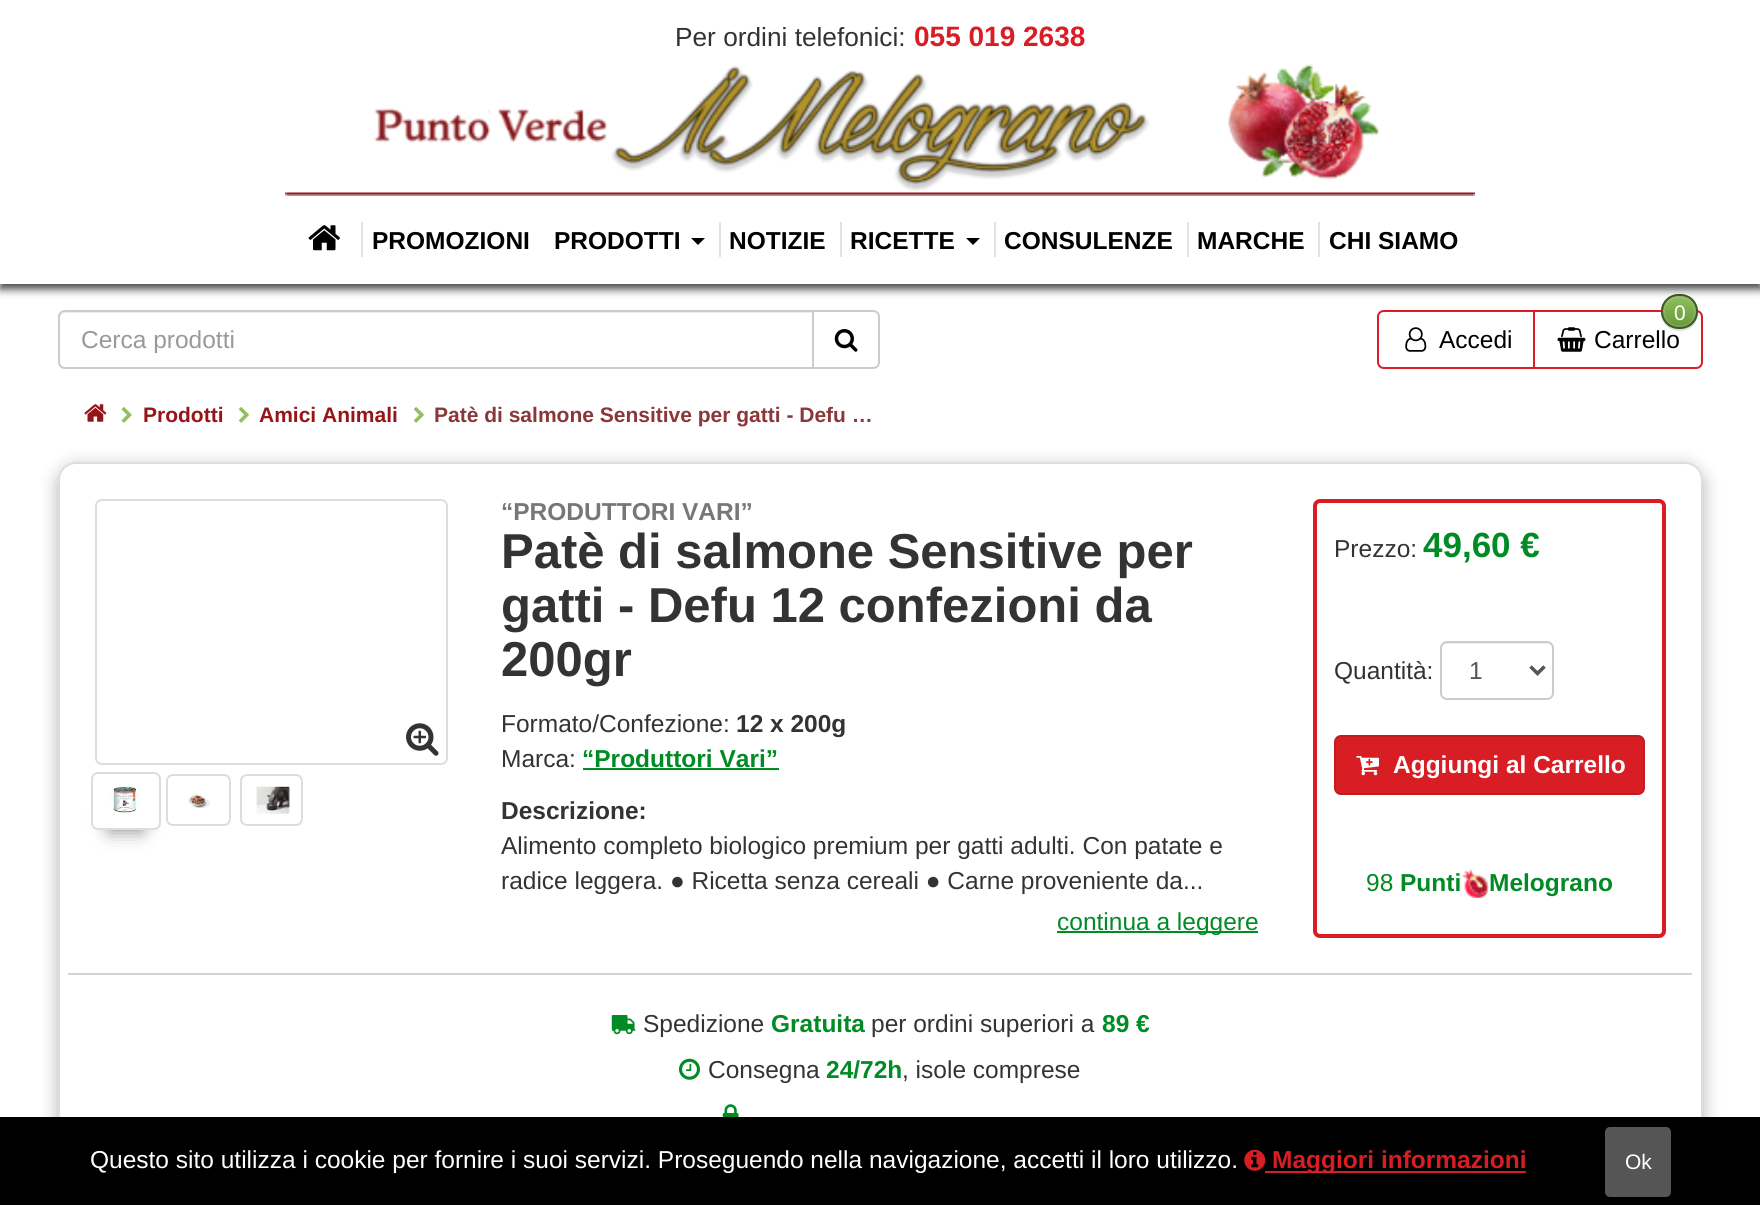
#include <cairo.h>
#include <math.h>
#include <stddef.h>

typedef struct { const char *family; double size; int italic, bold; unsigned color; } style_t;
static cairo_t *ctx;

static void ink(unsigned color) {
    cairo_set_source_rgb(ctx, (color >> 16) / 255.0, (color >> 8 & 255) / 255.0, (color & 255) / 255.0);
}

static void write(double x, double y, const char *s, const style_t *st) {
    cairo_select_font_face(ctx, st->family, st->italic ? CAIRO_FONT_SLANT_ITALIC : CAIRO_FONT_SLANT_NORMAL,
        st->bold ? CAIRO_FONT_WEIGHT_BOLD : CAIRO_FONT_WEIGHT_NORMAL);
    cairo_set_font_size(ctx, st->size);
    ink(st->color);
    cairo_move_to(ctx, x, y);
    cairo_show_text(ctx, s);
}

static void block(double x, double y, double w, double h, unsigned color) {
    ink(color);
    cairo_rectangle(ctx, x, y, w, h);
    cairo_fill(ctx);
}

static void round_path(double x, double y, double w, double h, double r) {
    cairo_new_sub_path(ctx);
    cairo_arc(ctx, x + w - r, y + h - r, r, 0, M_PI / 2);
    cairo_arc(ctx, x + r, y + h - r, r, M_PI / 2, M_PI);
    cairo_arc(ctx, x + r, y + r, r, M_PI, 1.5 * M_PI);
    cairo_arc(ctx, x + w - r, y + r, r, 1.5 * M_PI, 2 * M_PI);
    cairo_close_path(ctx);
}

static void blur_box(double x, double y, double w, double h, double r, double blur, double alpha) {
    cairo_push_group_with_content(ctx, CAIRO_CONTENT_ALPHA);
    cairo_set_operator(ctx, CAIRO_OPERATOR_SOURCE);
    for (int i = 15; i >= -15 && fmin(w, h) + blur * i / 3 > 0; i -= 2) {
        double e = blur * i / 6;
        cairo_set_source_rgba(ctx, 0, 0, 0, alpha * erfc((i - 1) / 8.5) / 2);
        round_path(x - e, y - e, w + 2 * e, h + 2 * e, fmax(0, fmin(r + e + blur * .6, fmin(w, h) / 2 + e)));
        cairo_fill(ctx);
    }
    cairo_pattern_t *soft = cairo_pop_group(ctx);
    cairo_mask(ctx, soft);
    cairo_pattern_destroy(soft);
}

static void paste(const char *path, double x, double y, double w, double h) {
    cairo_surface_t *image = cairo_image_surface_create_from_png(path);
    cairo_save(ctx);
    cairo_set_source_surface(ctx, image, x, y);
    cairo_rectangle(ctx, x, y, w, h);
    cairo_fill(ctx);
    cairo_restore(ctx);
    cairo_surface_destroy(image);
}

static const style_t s1 = {"Liberation Sans", 24.5, 0, 0, 0x000000};
static const style_t s2 = {"Liberation Sans", 26.25, 0, 0, 0x333333};
static const style_t s3 = {"Liberation Sans", 28, 0, 1, 0xd81e24};
static const style_t s4 = {"Liberation Sans", 24.5, 0, 1, 0x000000};
static const style_t s5 = {"Liberation Sans", 24.5, 0, 0, 0x999999};
static const style_t s6 = {"Liberation Sans", 21, 0, 0, 0xffffff};
static const style_t s7 = {"Liberation Sans", 21, 0, 1, 0x951519};
static const style_t s8 = {"Liberation Sans", 21, 0, 1, 0x8b3639};
static const style_t s9 = {"Liberation Sans", 24.5, 0, 1, 0x777777};
static const style_t s10 = {"Liberation Sans", 49, 0, 1, 0x333333};
static const style_t s11 = {"Liberation Sans", 24.5, 0, 0, 0x333333};
static const style_t s12 = {"Liberation Sans", 24.5, 0, 1, 0x333333};
static const style_t s13 = {"Liberation Sans", 24.5, 0, 1, 0x008b25};
static const style_t s14 = {"Liberation Sans", 24.5, 0, 0, 0x008b25};
static const style_t s15 = {"Liberation Sans", 35, 0, 1, 0x008b25};
static const style_t s16 = {"Liberation Sans", 24.5, 0, 0, 0x555555};
static const style_t s17 = {"Liberation Sans", 24.5, 0, 1, 0xffffff};
static const style_t s18 = {"Liberation Sans", 24.5, 0, 0, 0xffffff};
static const style_t s19 = {"Liberation Sans", 24.5, 0, 1, 0xd81e24};

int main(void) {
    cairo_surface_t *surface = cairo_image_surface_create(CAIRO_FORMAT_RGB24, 1760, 1205);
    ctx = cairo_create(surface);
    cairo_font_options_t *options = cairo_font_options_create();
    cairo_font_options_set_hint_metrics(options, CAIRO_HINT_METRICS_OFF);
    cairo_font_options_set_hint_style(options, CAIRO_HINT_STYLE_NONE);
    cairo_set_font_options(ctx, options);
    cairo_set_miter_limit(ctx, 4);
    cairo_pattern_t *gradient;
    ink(0xffffff);
    cairo_paint(ctx);
    cairo_new_path(ctx);
    cairo_move_to(ctx, 1384, 311);
    cairo_line_to(ctx, 1534, 311);
    cairo_line_to(ctx, 1534, 368);
    cairo_line_to(ctx, 1384, 368);
    cairo_curve_to(ctx, 1380.5, 368, 1378, 365.5, 1378, 362);
    cairo_line_to(ctx, 1378, 317);
    cairo_curve_to(ctx, 1378, 313.5, 1380.5, 311, 1384, 311);
    cairo_close_path(ctx);
    ink(0xd81e24);
    cairo_stroke(ctx);
    ink(0xffffff);
    cairo_new_path(ctx);
    cairo_move_to(ctx, 1534, 311);
    cairo_line_to(ctx, 1696, 311);
    cairo_curve_to(ctx, 1699.5, 311, 1702, 313.5, 1702, 317);
    cairo_line_to(ctx, 1702, 362);
    cairo_curve_to(ctx, 1702, 365.5, 1699.5, 368, 1696, 368);
    cairo_line_to(ctx, 1534, 368);
    cairo_close_path(ctx);
    cairo_fill_preserve(ctx);
    ink(0xd81e24);
    cairo_stroke(ctx);
    write(1594, 348, "Carrello", &s1);
    ink(0xe0e0e0);
    cairo_new_path(ctx);
    cairo_move_to(ctx, 1661, 314.5);
    cairo_curve_to(ctx, 1662.5, 333.5, 1689.5, 337, 1696.5, 320.5);
    cairo_curve_to(ctx, 1698, 316.5, 1698.5, 312, 1697, 308);
    cairo_curve_to(ctx, 1698, 311.5, 1697.5, 315, 1696, 318.5);
    cairo_curve_to(ctx, 1689.5, 334.5, 1664, 332, 1661, 314.5);
    cairo_close_path(ctx);
    cairo_fill(ctx);
    cairo_save(ctx);
    round_path(1661, 294, 37, 35, 17.5);
    cairo_clip(ctx);
    gradient = cairo_pattern_create_linear(1679, 296, 1679, 327);
    cairo_pattern_add_color_stop_rgba(gradient, 0, 0.557, 0.757, 0.357, 1);
    cairo_pattern_add_color_stop_rgba(gradient, 1, 0.408, 0.592, 0.224, 1);
    cairo_set_source(ctx, gradient);
    cairo_pattern_destroy(gradient);
    cairo_rectangle(ctx, 1661, 296, 37, 31);
    cairo_fill(ctx);
    cairo_restore(ctx);
    round_path(1664, 297, 31, 29, 14.5);
    cairo_set_source_rgba(ctx, 1, 1, 1, 0.1);
    cairo_stroke(ctx);
    round_path(1662, 295, 35, 33, 16.5);
    ink(0x42582b);
    cairo_stroke(ctx);
    ink(0x000000);
    blur_box(0, 5, 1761, 284, 0, 4.5, 0.75);
    block(0, 0, 1760, 284, 0xffffff);
    write(675, 46, "Per ordini telefonici:", &s2);
    write(914, 46, "055 019 2638", &s3);
    paste("pic1.png", 285, 64, 1190, 132);
    paste("pic2.png", 308, 225, 32, 26);
    block(361, 222, 2, 35, 0xe1e1e8);
    write(372, 249, "PROMOZIONI", &s4);
    write(554, 249, "PRODOTTI", &s4);
    cairo_new_path(ctx);
    cairo_move_to(ctx, 691, 238);
    cairo_line_to(ctx, 705, 238);
    cairo_line_to(ctx, 698, 245);
    cairo_close_path(ctx);
    cairo_fill(ctx);
    block(719, 222, 2, 35, 0xe1e1e8);
    write(729, 249, "NOTIZIE", &s4);
    block(840, 222, 2, 35, 0xe1e1e8);
    write(850, 249, "RICETTE", &s4);
    cairo_new_path(ctx);
    cairo_move_to(ctx, 966, 238);
    cairo_line_to(ctx, 980, 238);
    cairo_line_to(ctx, 973, 245);
    cairo_close_path(ctx);
    cairo_fill(ctx);
    block(994, 222, 2, 35, 0xe1e1e8);
    write(1004, 249, "CONSULENZE", &s4);
    block(1187, 222, 2, 35, 0xe1e1e8);
    write(1197, 249, "MARCHE", &s4);
    block(1318, 222, 2, 35, 0xe1e1e8);
    write(1329, 249, "CHI SIAMO", &s4);
    ink(0xececec);
    cairo_new_path(ctx);
    cairo_move_to(ctx, 65, 313);
    cairo_line_to(ctx, 812, 313);
    cairo_line_to(ctx, 812, 312);
    cairo_line_to(ctx, 65, 312);
    cairo_curve_to(ctx, 62, 312, 60, 314, 60, 317);
    cairo_line_to(ctx, 60, 318);
    cairo_curve_to(ctx, 60, 316, 62, 313, 65, 313);
    cairo_close_path(ctx);
    cairo_fill(ctx);
    cairo_new_path(ctx);
    cairo_move_to(ctx, 65, 311);
    cairo_line_to(ctx, 813, 311);
    cairo_line_to(ctx, 813, 368);
    cairo_line_to(ctx, 65, 368);
    cairo_curve_to(ctx, 61.5, 368, 59, 365.5, 59, 362);
    cairo_line_to(ctx, 59, 317);
    cairo_curve_to(ctx, 59, 313.5, 61.5, 311, 65, 311);
    cairo_close_path(ctx);
    ink(0xcccccc);
    cairo_stroke(ctx);
    write(81, 348, "Cerca prodotti", &s5);
    ink(0xffffff);
    cairo_new_path(ctx);
    cairo_move_to(ctx, 813, 311);
    cairo_line_to(ctx, 873, 311);
    cairo_curve_to(ctx, 876.5, 311, 879, 313.5, 879, 317);
    cairo_line_to(ctx, 879, 362);
    cairo_curve_to(ctx, 879, 365.5, 876.5, 368, 873, 368);
    cairo_line_to(ctx, 813, 368);
    cairo_close_path(ctx);
    cairo_fill_preserve(ctx);
    ink(0xcccccc);
    cairo_stroke(ctx);
    paste("pic3.png", 834, 329, 24, 23);
    paste("pic4.png", 1405, 327, 22, 25);
    write(1439, 348, "Accedi", &s1);
    write(1674, 320, "0", &s6);
    paste("pic5.png", 1557, 327, 29, 25);
    paste("pic6.png", 84, 404, 23, 18);
    paste("pic7.png", 121, 407, 11, 16);
    write(143, 422, "Prodotti", &s7);
    paste("pic8.png", 238, 407, 11, 16);
    write(259, 422, "Amici Animali", &s7);
    paste("pic8.png", 413, 407, 11, 16);
    write(434, 422, "Patè di salmone Sensitive per gatti - Defu …", &s8);
    cairo_save(ctx);
    cairo_set_fill_rule(ctx, CAIRO_FILL_RULE_EVEN_ODD);
    cairo_new_path(ctx);
    cairo_move_to(ctx, 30, 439);
    cairo_line_to(ctx, 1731, 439);
    cairo_line_to(ctx, 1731, 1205);
    cairo_line_to(ctx, 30, 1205);
    cairo_close_path(ctx);
    cairo_move_to(ctx, 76, 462);
    cairo_line_to(ctx, 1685, 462);
    cairo_curve_to(ctx, 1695, 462, 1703, 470, 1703, 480);
    cairo_line_to(ctx, 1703, 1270);
    cairo_curve_to(ctx, 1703, 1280, 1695, 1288, 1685, 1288);
    cairo_line_to(ctx, 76, 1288);
    cairo_curve_to(ctx, 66, 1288, 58, 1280, 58, 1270);
    cairo_line_to(ctx, 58, 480);
    cairo_curve_to(ctx, 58, 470, 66, 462, 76, 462);
    cairo_close_path(ctx);
    cairo_clip(ctx);
    ink(0x000000);
    blur_box(58, 467, 1645, 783, 18, 9, 0.3);
    cairo_restore(ctx);
    round_path(59, 463, 1643, 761, 17);
    ink(0xdddddd);
    cairo_stroke(ctx);
    round_path(96, 500, 351, 264, 6);
    cairo_stroke(ctx);
    paste("pic9.png", 406, 723, 33, 33);
    ink(0x000000);
    blur_box(110, 810, 32, 20, 0, 9.5, 0.5);
    ink(0xffffff);
    round_path(92, 773, 68, 56, 6);
    cairo_fill_preserve(ctx);
    ink(0xdddddd);
    cairo_stroke(ctx);
    paste("pic10.png", 109, 786, 32, 27);
    round_path(167, 775, 63, 50, 6);
    cairo_stroke(ctx);
    paste("pic11.png", 188, 793, 22, 15);
    round_path(241, 775, 61, 50, 6);
    cairo_stroke(ctx);
    paste("pic12.png", 256, 786, 34, 28);
    write(501, 520, "“PRODUTTORI VARI”", &s9);
    write(501, 568, "Patè di salmone Sensitive per", &s10);
    write(501, 622, "gatti - Defu 12 confezioni da", &s10);
    write(501, 676, "200gr", &s10);
    write(501, 732, "Formato/Confezione:", &s11);
    write(736, 732, "12 x 200g", &s12);
    write(501, 767, "Marca:", &s11);
    write(582, 767, "“Produttori Vari”", &s13);
    block(583, 768, 196, 2, 0x008b25);
    write(501, 819, "Descrizione:", &s12);
    write(501, 854, "Alimento completo biologico premium per gatti adulti. Con patate e", &s11);
    write(501, 889, "radice leggera. ● Ricetta senza cereali ● Carne proveniente da...", &s11);
    block(1057, 931, 201, 2, 0x008b25);
    write(1057, 930, "continua a leggere", &s14);
    round_path(1315, 501, 349, 435, 5);
    ink(0xd81e24);
    cairo_set_line_width(ctx, 4);
    cairo_stroke(ctx);
    write(1334, 557, "Prezzo:", &s11);
    write(1423, 557, "49,60 €", &s15);
    write(1334, 679, "Quantità:", &s11);
    ink(0xececec);
    cairo_new_path(ctx);
    cairo_move_to(ctx, 1447, 644);
    cairo_line_to(ctx, 1547, 644);
    cairo_curve_to(ctx, 1550, 644, 1552, 646, 1552, 649);
    cairo_line_to(ctx, 1552, 647);
    cairo_curve_to(ctx, 1552, 644, 1550, 642, 1547, 642);
    cairo_line_to(ctx, 1447, 642);
    cairo_curve_to(ctx, 1444, 642, 1442, 644, 1442, 647);
    cairo_line_to(ctx, 1442, 649);
    cairo_curve_to(ctx, 1442, 646, 1444, 644, 1447, 644);
    cairo_close_path(ctx);
    cairo_fill(ctx);
    round_path(1441, 642, 112, 57, 6);
    ink(0xcccccc);
    cairo_set_line_width(ctx, 2);
    cairo_stroke(ctx);
    cairo_new_path(ctx);
    cairo_move_to(ctx, 1530.5, 666.5);
    cairo_line_to(ctx, 1537.5, 673.5);
    cairo_line_to(ctx, 1544.5, 666.5);
    ink(0x555555);
    cairo_set_line_width(ctx, 3.5);
    cairo_stroke(ctx);
    write(1469, 679, "1", &s16);
    ink(0xd81e24);
    round_path(1335, 736, 309, 58, 6);
    cairo_fill_preserve(ctx);
    ink(0xc21b20);
    cairo_set_line_width(ctx, 2);
    cairo_stroke(ctx);
    paste("pic13.png", 1356, 756, 23, 20);
    write(1393, 773, "Aggiungi al Carrello", &s17);
    write(1366, 891, "98", &s14);
    write(1400, 891, "Punti", &s13);
    paste("pic14.png", 1462, 869, 28, 29);
    write(1489, 891, "Melograno", &s13);
    block(68, 973, 1624, 2, 0xd3d3d3);
    paste("pic15.png", 611, 1015, 25, 20);
    write(643, 1032, "Spedizione", &s11);
    write(771, 1032, "Gratuita", &s13);
    write(871, 1032, "per ordini superiori a", &s11);
    write(1102, 1032, "89 €", &s13);
    paste("pic16.png", 679, 1058, 21, 22);
    write(708, 1078, "Consegna", &s11);
    write(826, 1078, "24/72h", &s13);
    write(902, 1078, ", isole comprese", &s11);
    paste("pic17.png", 722, 1104, 17, 13);
    block(0, 1117, 1760, 88, 0x000000);
    write(90, 1168, "Questo sito utilizza i cookie per fornire i suoi servizi. Proseguendo nella navigazione, accetti il loro utilizzo.", &s18);
    paste("pic18.png", 1244, 1149, 22, 22);
    block(1265, 1171, 261, 2, 0xd81e24);
    write(1272, 1168, "Maggiori informazioni", &s19);
    ink(0x555555);
    round_path(1605, 1127, 66, 70, 5);
    cairo_fill(ctx);
    write(1625, 1169, "Ok", &s6);
    cairo_surface_write_to_png(surface, "screenshot.png");
    cairo_font_options_destroy(options);
    cairo_destroy(ctx);
    cairo_surface_destroy(surface);
    return 0;
}
